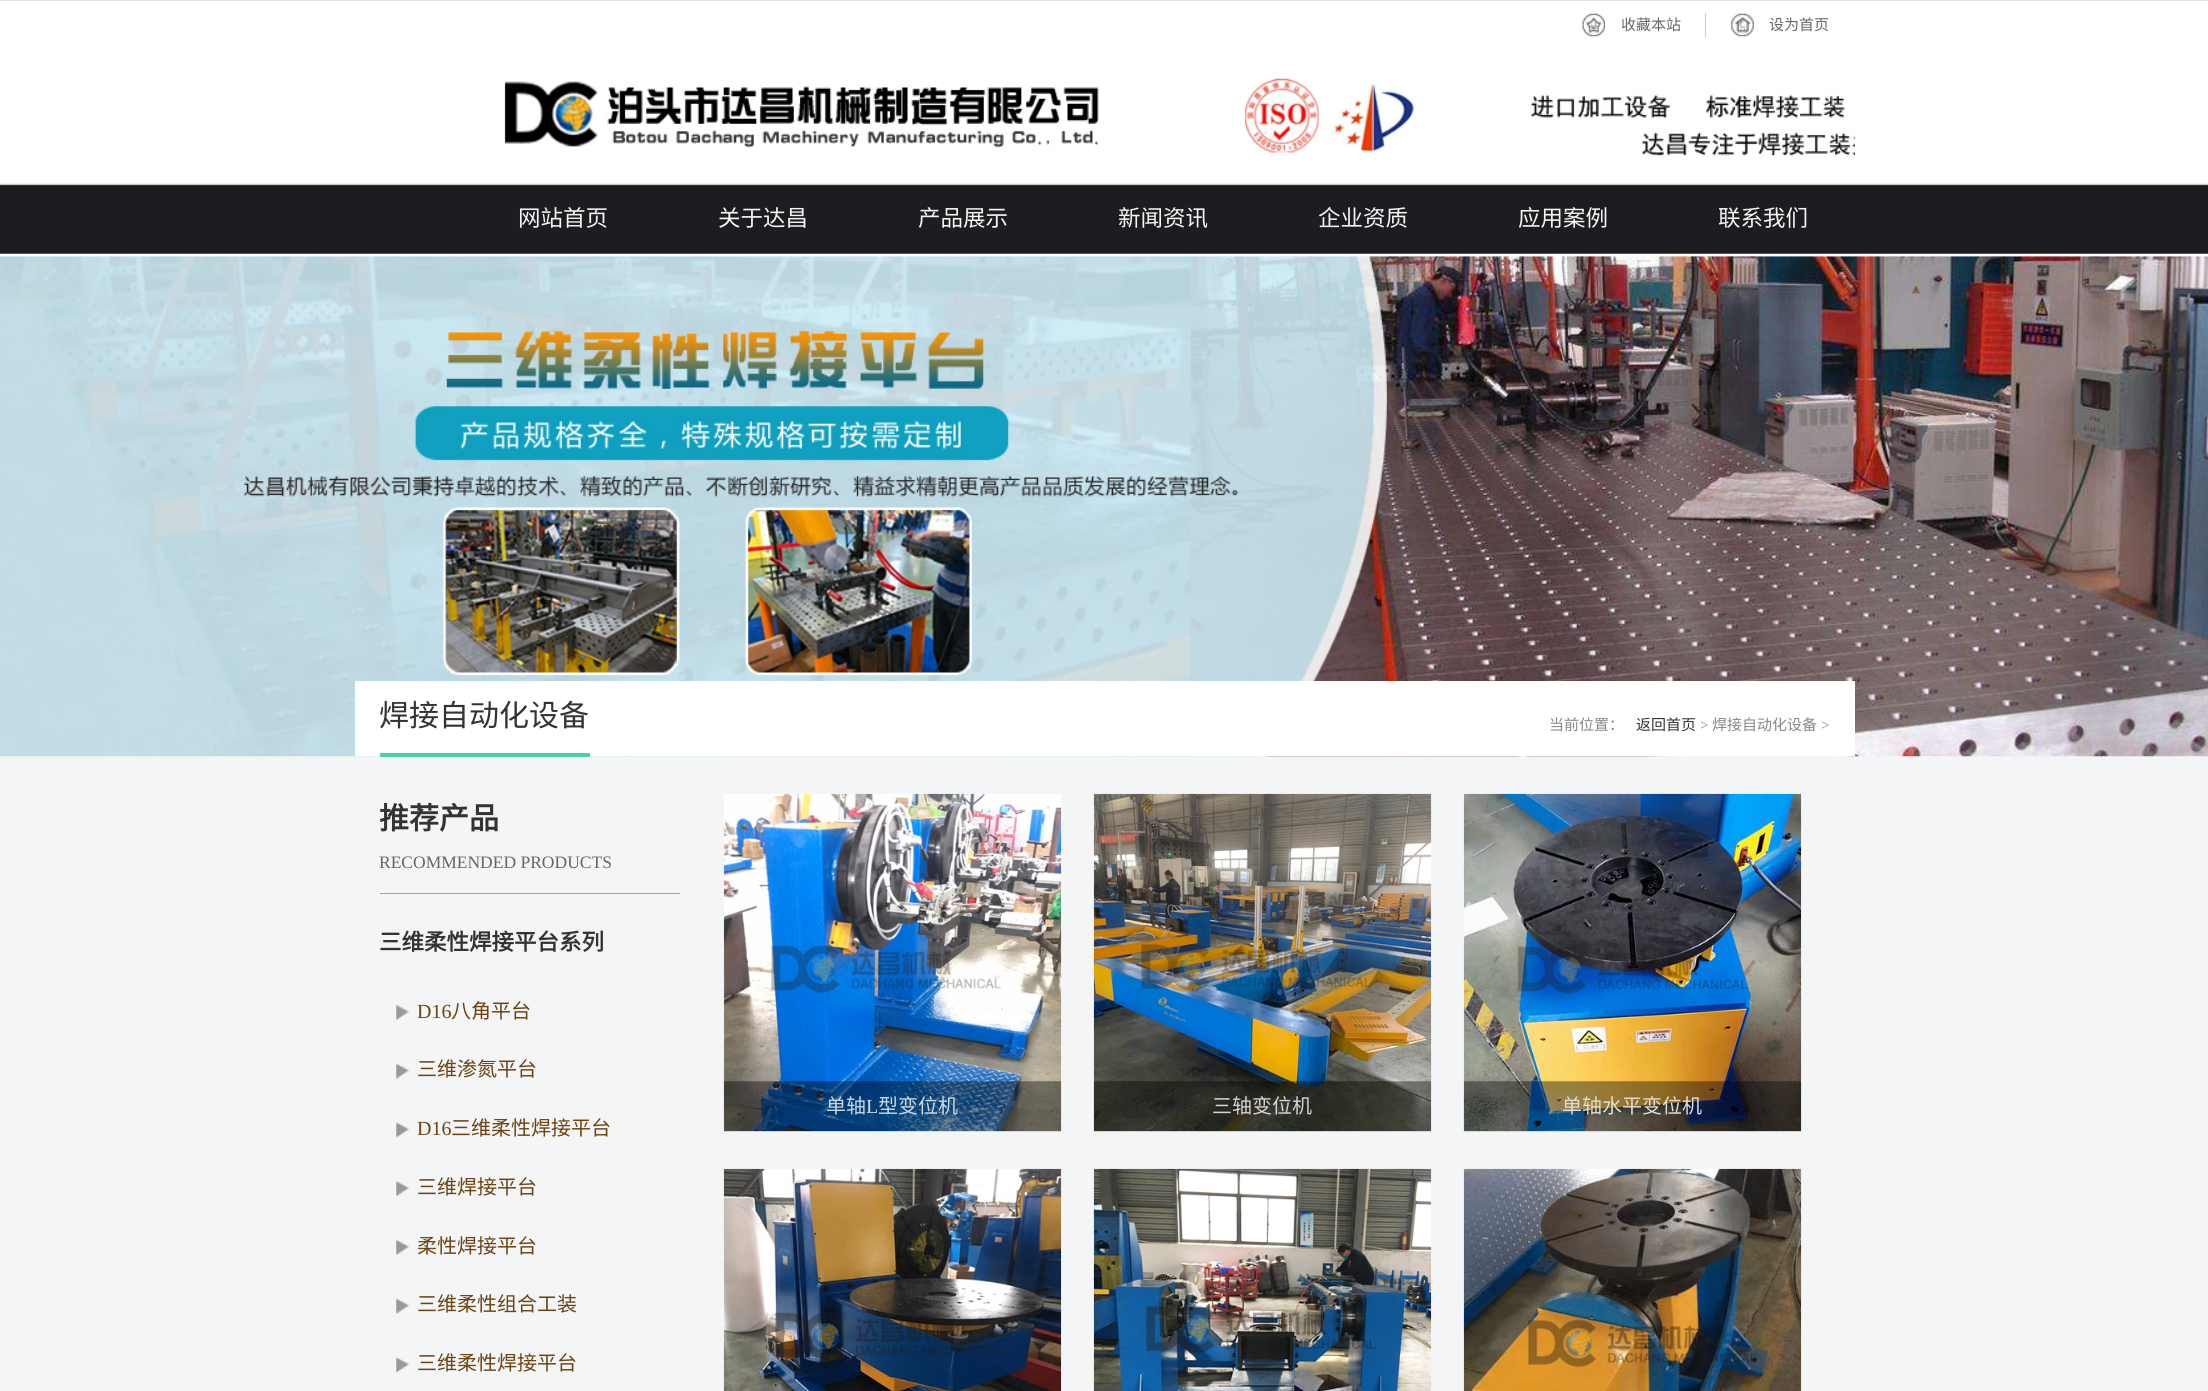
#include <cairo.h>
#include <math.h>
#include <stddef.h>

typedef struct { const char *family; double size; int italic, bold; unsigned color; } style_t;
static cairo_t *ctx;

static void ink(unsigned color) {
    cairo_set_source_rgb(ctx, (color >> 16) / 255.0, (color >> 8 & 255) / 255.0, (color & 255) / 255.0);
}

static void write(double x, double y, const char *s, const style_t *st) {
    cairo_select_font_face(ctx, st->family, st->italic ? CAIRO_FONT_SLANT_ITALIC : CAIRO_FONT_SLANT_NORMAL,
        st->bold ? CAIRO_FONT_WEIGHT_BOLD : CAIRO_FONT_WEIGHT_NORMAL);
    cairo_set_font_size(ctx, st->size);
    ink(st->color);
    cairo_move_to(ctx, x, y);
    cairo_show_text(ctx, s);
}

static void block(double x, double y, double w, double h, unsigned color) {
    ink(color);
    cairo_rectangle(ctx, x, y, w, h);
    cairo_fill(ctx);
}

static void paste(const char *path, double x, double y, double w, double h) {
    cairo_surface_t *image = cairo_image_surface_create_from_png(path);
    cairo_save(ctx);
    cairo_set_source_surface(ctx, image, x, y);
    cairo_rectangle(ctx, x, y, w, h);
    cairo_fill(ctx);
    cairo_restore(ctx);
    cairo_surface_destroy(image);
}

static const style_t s1 = {"Noto Sans CJK SC", 15, 0, 0, 0x666666};
static const style_t s2 = {"Noto Sans CJK SC", 22.5, 0, 0, 0xf8f4f4};
static const style_t s3 = {"Noto Sans CJK SC", 30, 0, 0, 0x333333};
static const style_t s4 = {"Noto Sans CJK SC", 15, 0, 0, 0x888888};
static const style_t s5 = {"Noto Sans CJK SC", 15, 0, 0, 0x333333};
static const style_t s6 = {"Liberation Serif", 15, 0, 0, 0x888888};
static const style_t s7 = {"Noto Sans CJK SC", 30, 0, 1, 0x333333};
static const style_t s8 = {"Liberation Serif", 17.5, 0, 0, 0x666666};
static const style_t s9 = {"Noto Sans CJK SC", 22.5, 0, 1, 0x333333};
static const style_t s10 = {"Liberation Serif", 20, 0, 0, 0x6d4310};
static const style_t s11 = {"Noto Sans CJK SC", 20, 0, 0, 0x6d4310};
static const style_t s12 = {"Noto Sans CJK SC", 20, 0, 0, 0xcdd9e4};
static const style_t s13 = {"Liberation Serif", 20, 0, 0, 0xcdd9e4};
static const style_t s14 = {"Noto Sans CJK SC", 20, 0, 0, 0xd5d5d3};
static const style_t s15 = {"Noto Sans CJK SC", 20, 0, 0, 0xe1ded7};

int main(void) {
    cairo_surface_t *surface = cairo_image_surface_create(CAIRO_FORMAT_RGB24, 2208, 1391);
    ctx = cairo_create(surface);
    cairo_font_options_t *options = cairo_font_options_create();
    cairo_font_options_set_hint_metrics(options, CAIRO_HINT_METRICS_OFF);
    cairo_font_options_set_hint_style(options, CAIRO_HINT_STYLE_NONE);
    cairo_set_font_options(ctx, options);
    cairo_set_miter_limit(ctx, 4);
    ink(0xf4f5f6);
    cairo_paint(ctx);
    paste("pic5.png", 0, 256, 2208, 501);
    paste("pic1.png", 0, 0, 2208, 257);
    paste("pic2.png", 1582, 13, 23, 24);
    block(1705, 13, 1, 25, 0xcccccc);
    write(1621, 30, "收藏本站", &s1);
    paste("pic3.png", 1731, 13, 23, 24);
    write(1769, 30, "设为首页", &s1);
    paste("pic4.png", 504, 37, 1351, 119);
    write(518, 226, "网站首页", &s2);
    write(718, 226, "关于达昌", &s2);
    write(918, 226, "产品展示", &s2);
    write(1118, 226, "新闻资讯", &s2);
    write(1318, 226, "企业资质", &s2);
    write(1518, 226, "应用案例", &s2);
    write(1718, 226, "联系我们", &s2);
    block(355, 681, 1500, 75, 0xffffff);
    block(380, 753, 210, 4, 0x48cfad);
    write(379, 726, "焊接自动化设备", &s3);
    write(1549, 730, "当前位置：", &s4);
    write(1636, 730, "返回首页", &s5);
    write(1700, 730, ">", &s6);
    write(1712, 730, "焊接自动化设备", &s4);
    write(1821, 730, ">", &s6);
    block(380, 893, 300, 1, 0x48cfad);
    write(379, 829, "推荐产品", &s7);
    write(379, 868, "RECOMMENDED PRODUCTS", &s8);
    write(379, 950, "三维柔性焊接平台系列", &s9);
    paste("pic6.png", 396, 1005, 13, 15);
    write(417, 1018, "D16", &s10);
    write(451, 1018, "八角平台", &s11);
    paste("pic7.png", 396, 1063, 13, 16);
    write(417, 1076, "三维渗氮平台", &s11);
    paste("pic8.png", 396, 1122, 13, 16);
    write(417, 1135, "D16", &s10);
    write(451, 1135, "三维柔性焊接平台", &s11);
    paste("pic9.png", 396, 1181, 13, 16);
    write(417, 1194, "三维焊接平台", &s11);
    paste("pic6.png", 396, 1240, 13, 15);
    write(417, 1253, "柔性焊接平台", &s11);
    paste("pic7.png", 396, 1298, 13, 16);
    write(417, 1311, "三维柔性组合工装", &s11);
    paste("pic8.png", 396, 1357, 13, 16);
    write(417, 1370, "三维柔性焊接平台", &s11);
    paste("pic10.png", 723, 793, 339, 339);
    paste("pic11.png", 723, 1081, 339, 51);
    write(826, 1113, "单轴", &s12);
    write(866, 1113, "L", &s13);
    write(878, 1113, "型变位机", &s12);
    paste("pic12.png", 1093, 793, 339, 339);
    paste("pic13.png", 1093, 1081, 339, 51);
    write(1212, 1113, "三轴变位机", &s14);
    paste("pic14.png", 1463, 793, 339, 339);
    paste("pic15.png", 1463, 1081, 339, 51);
    write(1562, 1113, "单轴水平变位机", &s15);
    paste("pic16.png", 723, 1168, 339, 223);
    paste("pic17.png", 1093, 1168, 339, 223);
    paste("pic18.png", 1463, 1168, 339, 223);
    cairo_surface_write_to_png(surface, "screenshot.png");
    cairo_font_options_destroy(options);
    cairo_destroy(ctx);
    cairo_surface_destroy(surface);
    return 0;
}
